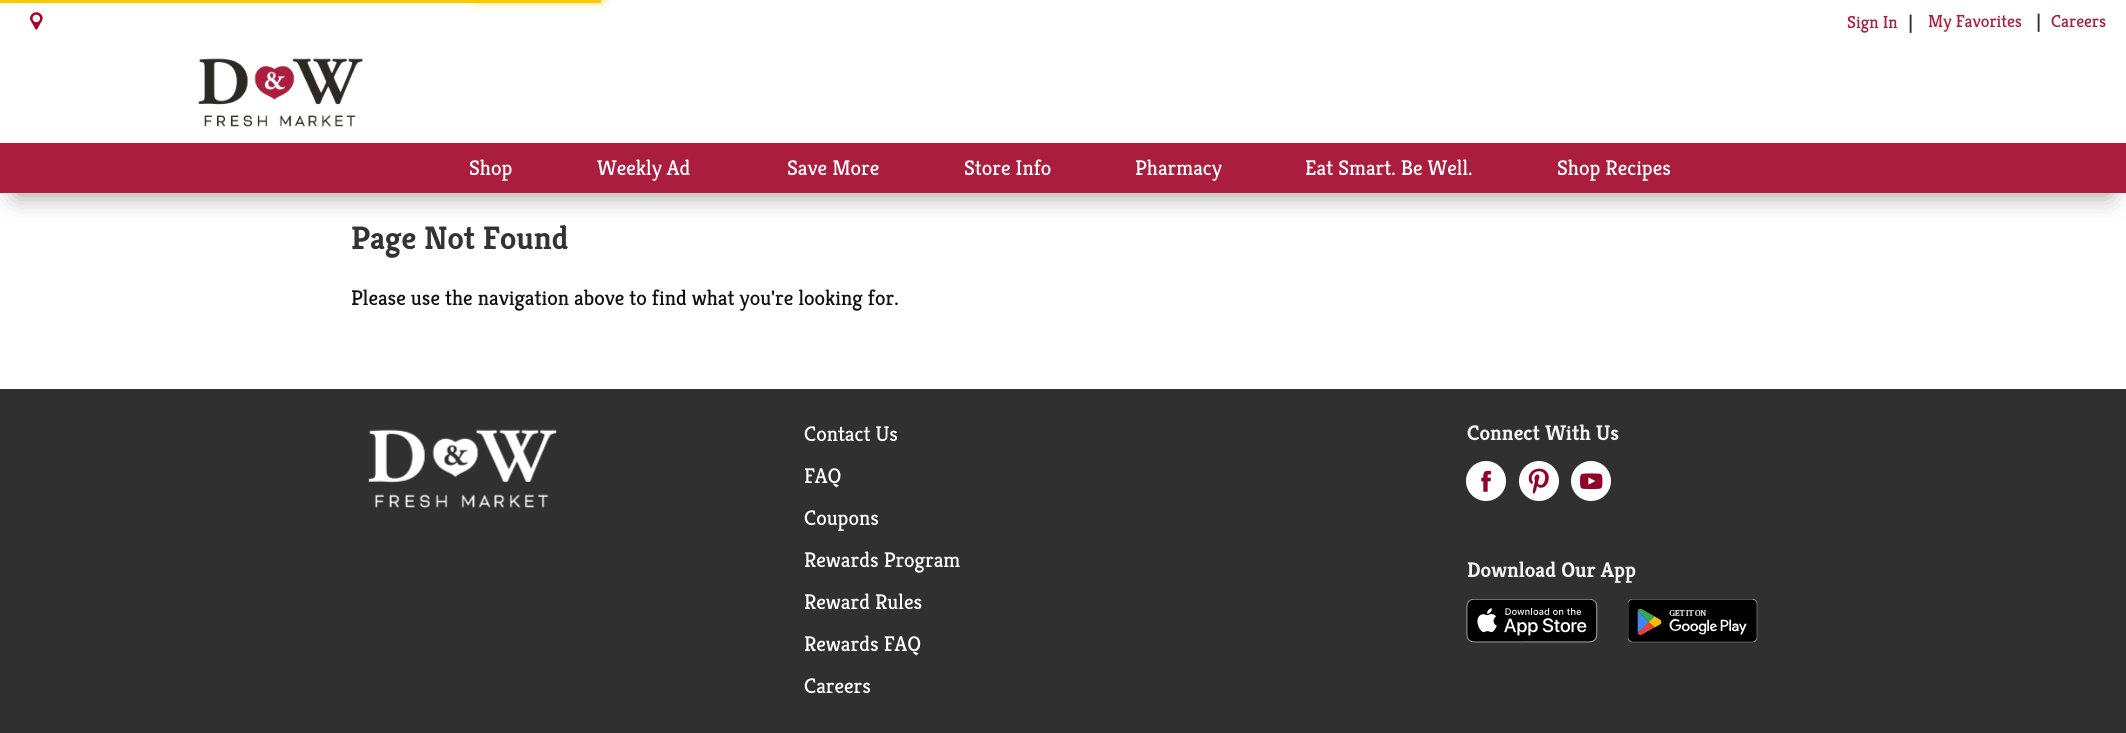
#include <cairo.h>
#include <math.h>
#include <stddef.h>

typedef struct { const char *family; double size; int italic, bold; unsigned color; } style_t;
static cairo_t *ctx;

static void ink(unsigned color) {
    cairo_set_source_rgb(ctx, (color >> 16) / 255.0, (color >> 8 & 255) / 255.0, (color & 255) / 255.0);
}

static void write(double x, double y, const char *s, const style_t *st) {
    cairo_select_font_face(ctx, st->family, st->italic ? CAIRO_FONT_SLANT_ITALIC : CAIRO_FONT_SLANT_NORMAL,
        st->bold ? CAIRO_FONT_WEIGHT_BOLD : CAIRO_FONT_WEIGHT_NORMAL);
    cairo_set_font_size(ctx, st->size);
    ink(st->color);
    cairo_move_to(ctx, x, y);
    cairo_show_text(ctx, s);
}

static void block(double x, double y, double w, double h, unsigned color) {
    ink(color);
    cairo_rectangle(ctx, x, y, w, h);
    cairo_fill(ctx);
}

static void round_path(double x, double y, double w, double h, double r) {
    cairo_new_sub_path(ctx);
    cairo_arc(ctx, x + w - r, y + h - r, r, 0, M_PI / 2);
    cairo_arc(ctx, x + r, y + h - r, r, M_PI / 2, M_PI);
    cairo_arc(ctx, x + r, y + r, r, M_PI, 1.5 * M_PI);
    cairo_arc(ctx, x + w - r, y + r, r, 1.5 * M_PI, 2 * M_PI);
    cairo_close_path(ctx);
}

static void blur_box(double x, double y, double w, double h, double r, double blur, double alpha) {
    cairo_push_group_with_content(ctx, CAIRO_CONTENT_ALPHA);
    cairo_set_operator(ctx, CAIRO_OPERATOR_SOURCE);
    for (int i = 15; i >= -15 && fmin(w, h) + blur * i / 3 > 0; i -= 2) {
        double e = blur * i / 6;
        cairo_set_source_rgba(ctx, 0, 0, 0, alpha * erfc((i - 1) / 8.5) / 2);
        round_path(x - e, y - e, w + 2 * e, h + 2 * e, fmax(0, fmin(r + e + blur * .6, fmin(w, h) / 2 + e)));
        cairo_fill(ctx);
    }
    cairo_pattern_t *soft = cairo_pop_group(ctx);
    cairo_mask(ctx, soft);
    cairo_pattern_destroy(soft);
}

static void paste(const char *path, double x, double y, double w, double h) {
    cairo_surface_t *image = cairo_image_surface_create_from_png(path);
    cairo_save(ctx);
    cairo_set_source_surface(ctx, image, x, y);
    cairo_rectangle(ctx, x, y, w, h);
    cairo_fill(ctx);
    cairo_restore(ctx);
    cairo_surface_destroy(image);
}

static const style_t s1 = {"Kreon", 17.5, 0, 0, 0xab1d3f};
static const style_t s2 = {"Kreon", 21.25, 0, 0, 0x333333};
static const style_t s3 = {"Kreon", 21.25, 0, 0, 0xffffff};
static const style_t s4 = {"Kreon", 32.5, 0, 1, 0x333333};
static const style_t s5 = {"Kreon", 21.25, 0, 0, 0x121212};
static const style_t s6 = {"Kreon", 21.25, 0, 1, 0xf2f2f2};

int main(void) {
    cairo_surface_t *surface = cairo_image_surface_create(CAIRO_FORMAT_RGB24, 2126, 733);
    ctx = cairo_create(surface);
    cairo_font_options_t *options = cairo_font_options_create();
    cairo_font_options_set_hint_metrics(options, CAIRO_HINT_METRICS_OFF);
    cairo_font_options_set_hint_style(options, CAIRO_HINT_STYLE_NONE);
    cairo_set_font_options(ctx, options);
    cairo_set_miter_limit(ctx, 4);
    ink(0xffffff);
    cairo_paint(ctx);
    block(0, 0, 601, 3, 0xfac901);
    ink(0xfac901);
    blur_box(476, -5, 125, 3, 0, 3, 1);
    blur_box(476, -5, 125, 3, 0, 6.5, 1);
    paste("pic1.png", 30, 12, 13, 18);
    write(1847, 28, "Sign In", &s1);
    write(1908, 29, "|", &s2);
    write(1928, 27, "My Favorites", &s1);
    write(2036, 28, "|", &s2);
    write(2051, 27, "Careers", &s1);
    paste("pic2.png", 198, 58, 165, 69);
    ink(0x000000);
    blur_box(16, 178, 2094, 17, 0, 12.5, 0.4);
    block(0, 143, 2126, 50, 0xab1d3f);
    write(469, 175, "Shop", &s3);
    write(597, 175, "Weekly Ad", &s3);
    write(787, 175, "Save More", &s3);
    write(964, 175, "Store Info", &s3);
    write(1135, 175, "Pharmacy", &s3);
    write(1305, 175, "Eat Smart. Be Well.", &s3);
    write(1557, 175, "Shop Recipes", &s3);
    write(351, 249, "Page Not Found", &s4);
    write(351, 305, "Please use the navigation above to find what you're looking for.", &s5);
    block(0, 389, 2126, 344, 0x303030);
    paste("pic3.png", 368, 429, 189, 79);
    write(804, 441, "Contact Us", &s3);
    write(804, 483, "FAQ", &s3);
    write(804, 525, "Coupons", &s3);
    write(804, 567, "Rewards Program", &s3);
    write(804, 609, "Reward Rules", &s3);
    write(804, 651, "Rewards FAQ", &s3);
    write(804, 693, "Careers", &s3);
    write(1467, 440, "Connect With Us", &s6);
    ink(0xffffff);
    cairo_new_path(ctx);
    cairo_arc(ctx, 1486, 481, 20, 0, 2 * M_PI);
    cairo_fill(ctx);
    paste("pic4.png", 1481, 470, 10, 22);
    cairo_arc(ctx, 1539, 481, 20, 0, 2 * M_PI);
    cairo_fill(ctx);
    paste("pic5.png", 1528, 468, 21, 26);
    cairo_arc(ctx, 1591, 481, 20, 0, 2 * M_PI);
    cairo_fill(ctx);
    paste("pic6.png", 1580, 473, 23, 17);
    write(1467, 577, "Download Our App", &s6);
    paste("pic7.png", 1466, 599, 132, 44);
    paste("pic8.png", 1628, 599, 130, 44);
    cairo_surface_write_to_png(surface, "screenshot.png");
    cairo_font_options_destroy(options);
    cairo_destroy(ctx);
    cairo_surface_destroy(surface);
    return 0;
}
